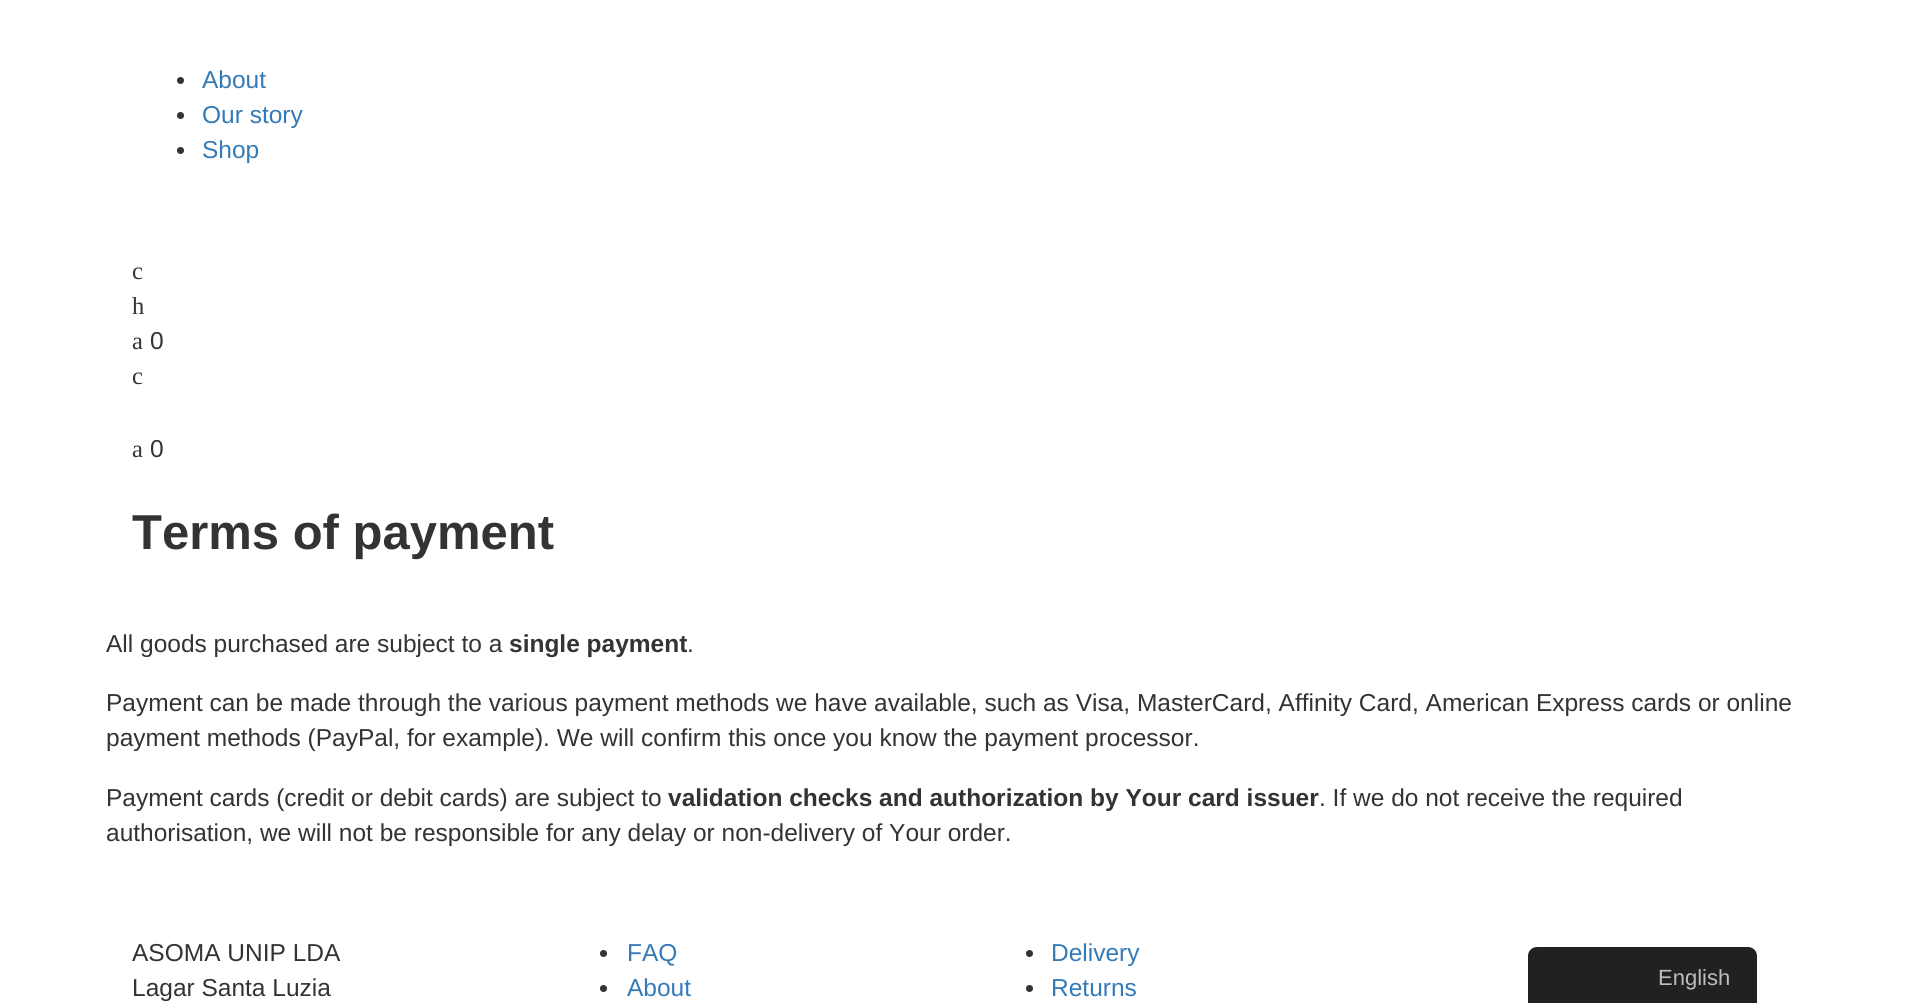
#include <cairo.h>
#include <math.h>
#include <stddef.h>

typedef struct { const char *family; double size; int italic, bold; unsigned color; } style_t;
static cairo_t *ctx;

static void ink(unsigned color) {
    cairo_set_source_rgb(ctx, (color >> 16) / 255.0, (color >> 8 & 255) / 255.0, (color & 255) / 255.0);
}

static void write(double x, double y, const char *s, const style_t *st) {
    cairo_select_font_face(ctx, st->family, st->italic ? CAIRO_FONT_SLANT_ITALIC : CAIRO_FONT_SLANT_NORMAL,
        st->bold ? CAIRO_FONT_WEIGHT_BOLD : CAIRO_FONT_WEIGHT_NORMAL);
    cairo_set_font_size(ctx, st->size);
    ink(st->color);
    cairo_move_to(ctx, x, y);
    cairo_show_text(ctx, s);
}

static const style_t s1 = {"Liberation Sans", 24.5, 0, 0, 0x337ab7};
static const style_t s2 = {"Liberation Serif", 24.5, 0, 0, 0x333333};
static const style_t s3 = {"Liberation Sans", 24.5, 0, 0, 0x333333};
static const style_t s4 = {"Liberation Sans", 49, 0, 1, 0x333333};
static const style_t s5 = {"Liberation Sans", 24.5, 0, 1, 0x333333};
static const style_t s6 = {"Liberation Sans", 22, 0, 0, 0xbdbdbd};

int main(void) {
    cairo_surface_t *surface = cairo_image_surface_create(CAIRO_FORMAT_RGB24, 1908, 1003);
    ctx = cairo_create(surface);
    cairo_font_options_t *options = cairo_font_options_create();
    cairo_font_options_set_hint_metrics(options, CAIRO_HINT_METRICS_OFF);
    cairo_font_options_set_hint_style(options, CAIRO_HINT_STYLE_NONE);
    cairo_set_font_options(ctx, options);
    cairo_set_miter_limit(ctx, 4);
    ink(0xffffff);
    cairo_paint(ctx);
    ink(0x333333);
    cairo_arc(ctx, 180.5, 80.5, 3.5, 0, 2 * M_PI);
    cairo_fill(ctx);
    write(202, 88, "About", &s1);
    ink(0x333333);
    cairo_new_path(ctx);
    cairo_arc(ctx, 180.5, 115.5, 3.5, 0, 2 * M_PI);
    cairo_fill(ctx);
    write(202, 123, "Our story", &s1);
    ink(0x333333);
    cairo_new_path(ctx);
    cairo_arc(ctx, 180.5, 150.5, 3.5, 0, 2 * M_PI);
    cairo_fill(ctx);
    write(202, 158, "Shop", &s1);
    write(132, 279, "c", &s2);
    write(132, 314, "h", &s2);
    write(132, 349, "a", &s2);
    write(150, 349, "0", &s3);
    write(132, 384, "c", &s2);
    write(132, 457, "a", &s2);
    write(150, 457, "0", &s3);
    write(132, 549, "Terms of payment", &s4);
    write(106, 652, "All goods purchased are subject to a", &s3);
    write(509, 652, "single payment", &s5);
    write(687, 652, ".", &s3);
    write(106, 711, "Payment can be made through the various payment methods we have available, such as Visa, MasterCard, Affinity Card, American Express cards or online", &s3);
    write(106, 746, "payment methods (PayPal, for example). We will confirm this once you know the payment processor.", &s3);
    write(106, 806, "Payment cards (credit or debit cards) are subject to", &s3);
    write(668, 806, "validation checks and authorization by Your card issuer", &s5);
    write(1319, 806, ". If we do not receive the required", &s3);
    write(106, 841, "authorisation, we will not be responsible for any delay or non-delivery of Your order.", &s3);
    write(132, 961, "ASOMA UNIP LDA", &s3);
    write(132, 996, "Lagar Santa Luzia", &s3);
    cairo_new_path(ctx);
    cairo_arc(ctx, 603.5, 953.5, 3.5, 0, 2 * M_PI);
    cairo_fill(ctx);
    write(627, 961, "FAQ", &s1);
    ink(0x333333);
    cairo_new_path(ctx);
    cairo_arc(ctx, 603.5, 988.5, 3.5, 0, 2 * M_PI);
    cairo_fill(ctx);
    write(627, 996, "About", &s1);
    ink(0x333333);
    cairo_new_path(ctx);
    cairo_arc(ctx, 1029.5, 953.5, 3.5, 0, 2 * M_PI);
    cairo_fill(ctx);
    write(1051, 961, "Delivery", &s1);
    ink(0x333333);
    cairo_new_path(ctx);
    cairo_arc(ctx, 1029.5, 988.5, 3.5, 0, 2 * M_PI);
    cairo_fill(ctx);
    write(1051, 996, "Returns", &s1);
    ink(0x212121);
    cairo_new_path(ctx);
    cairo_move_to(ctx, 1537, 947);
    cairo_line_to(ctx, 1748, 947);
    cairo_curve_to(ctx, 1753, 947, 1757, 951, 1757, 956);
    cairo_line_to(ctx, 1757, 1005);
    cairo_line_to(ctx, 1528, 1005);
    cairo_line_to(ctx, 1528, 956);
    cairo_curve_to(ctx, 1528, 951, 1532, 947, 1537, 947);
    cairo_close_path(ctx);
    cairo_fill(ctx);
    write(1658, 985, "English", &s6);
    cairo_surface_write_to_png(surface, "screenshot.png");
    cairo_font_options_destroy(options);
    cairo_destroy(ctx);
    cairo_surface_destroy(surface);
    return 0;
}
